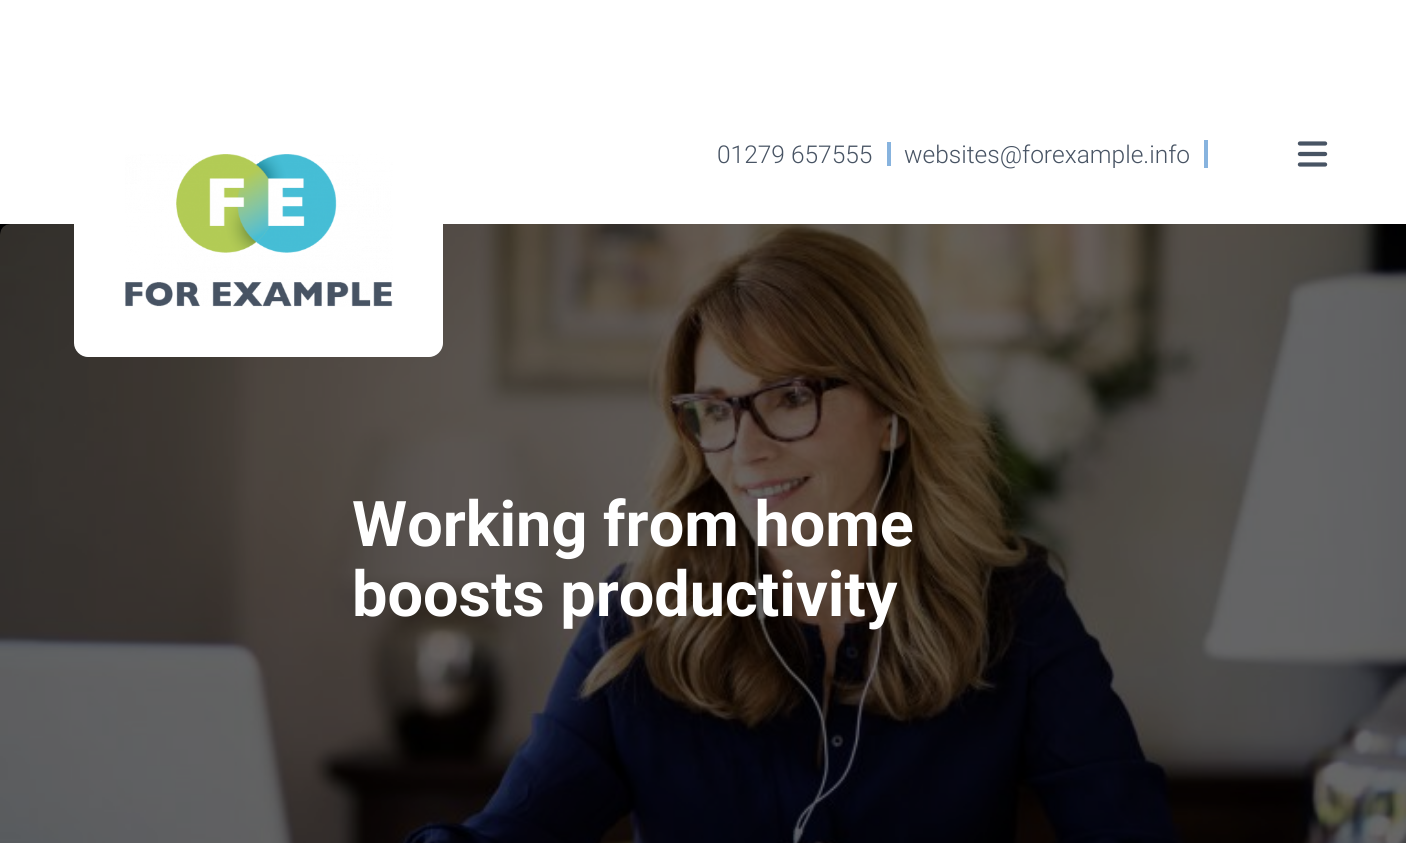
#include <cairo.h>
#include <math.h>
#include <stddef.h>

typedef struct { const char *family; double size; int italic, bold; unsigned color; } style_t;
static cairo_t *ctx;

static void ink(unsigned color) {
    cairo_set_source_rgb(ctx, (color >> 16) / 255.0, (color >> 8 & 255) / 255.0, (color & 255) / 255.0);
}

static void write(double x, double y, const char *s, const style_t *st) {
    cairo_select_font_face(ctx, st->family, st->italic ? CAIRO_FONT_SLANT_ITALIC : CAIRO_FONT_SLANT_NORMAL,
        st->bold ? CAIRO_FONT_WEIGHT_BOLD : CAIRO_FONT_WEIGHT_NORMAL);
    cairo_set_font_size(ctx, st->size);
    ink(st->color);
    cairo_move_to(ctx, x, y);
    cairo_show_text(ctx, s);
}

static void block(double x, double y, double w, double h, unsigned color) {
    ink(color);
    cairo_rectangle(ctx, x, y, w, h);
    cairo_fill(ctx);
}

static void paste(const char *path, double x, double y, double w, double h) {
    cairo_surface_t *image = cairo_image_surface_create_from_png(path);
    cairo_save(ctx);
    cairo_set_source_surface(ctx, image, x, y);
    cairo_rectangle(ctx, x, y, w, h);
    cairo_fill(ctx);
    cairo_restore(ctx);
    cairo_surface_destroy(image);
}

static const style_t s1 = {"Roboto Light", 24.5, 0, 0, 0x485464};
static const style_t s2 = {"Roboto", 63, 0, 1, 0xffffff};

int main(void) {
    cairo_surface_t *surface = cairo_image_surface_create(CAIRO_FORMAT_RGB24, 1406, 843);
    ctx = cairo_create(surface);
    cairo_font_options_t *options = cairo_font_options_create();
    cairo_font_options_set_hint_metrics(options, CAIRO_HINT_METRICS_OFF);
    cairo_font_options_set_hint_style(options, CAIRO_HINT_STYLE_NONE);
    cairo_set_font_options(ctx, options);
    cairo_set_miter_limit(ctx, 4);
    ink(0xffffff);
    cairo_paint(ctx);
    block(0, 224, 1406, 619, 0x000000);
    paste("pic3.png", 0, 224, 1406, 619);
    ink(0xffffff);
    cairo_new_path(ctx);
    cairo_move_to(ctx, 74, 84);
    cairo_line_to(ctx, 443, 84);
    cairo_line_to(ctx, 443, 343);
    cairo_curve_to(ctx, 443, 350.5, 436.5, 357, 429, 357);
    cairo_line_to(ctx, 88, 357);
    cairo_curve_to(ctx, 80.5, 357, 74, 350.5, 74, 343);
    cairo_close_path(ctx);
    cairo_fill(ctx);
    paste("pic1.png", 125, 154, 268, 153);
    block(887, 142, 4, 24, 0x87b3de);
    write(717, 163, "01279 657555", &s1);
    write(904, 163, "websites@forexample.info", &s1);
    block(1204, 140, 4, 28, 0x87b3de);
    paste("pic2.png", 1297, 141, 31, 26);
    write(352, 546, "Working from home", &s2);
    write(352, 616, "boosts productivity", &s2);
    cairo_surface_write_to_png(surface, "screenshot.png");
    cairo_font_options_destroy(options);
    cairo_destroy(ctx);
    cairo_surface_destroy(surface);
    return 0;
}
